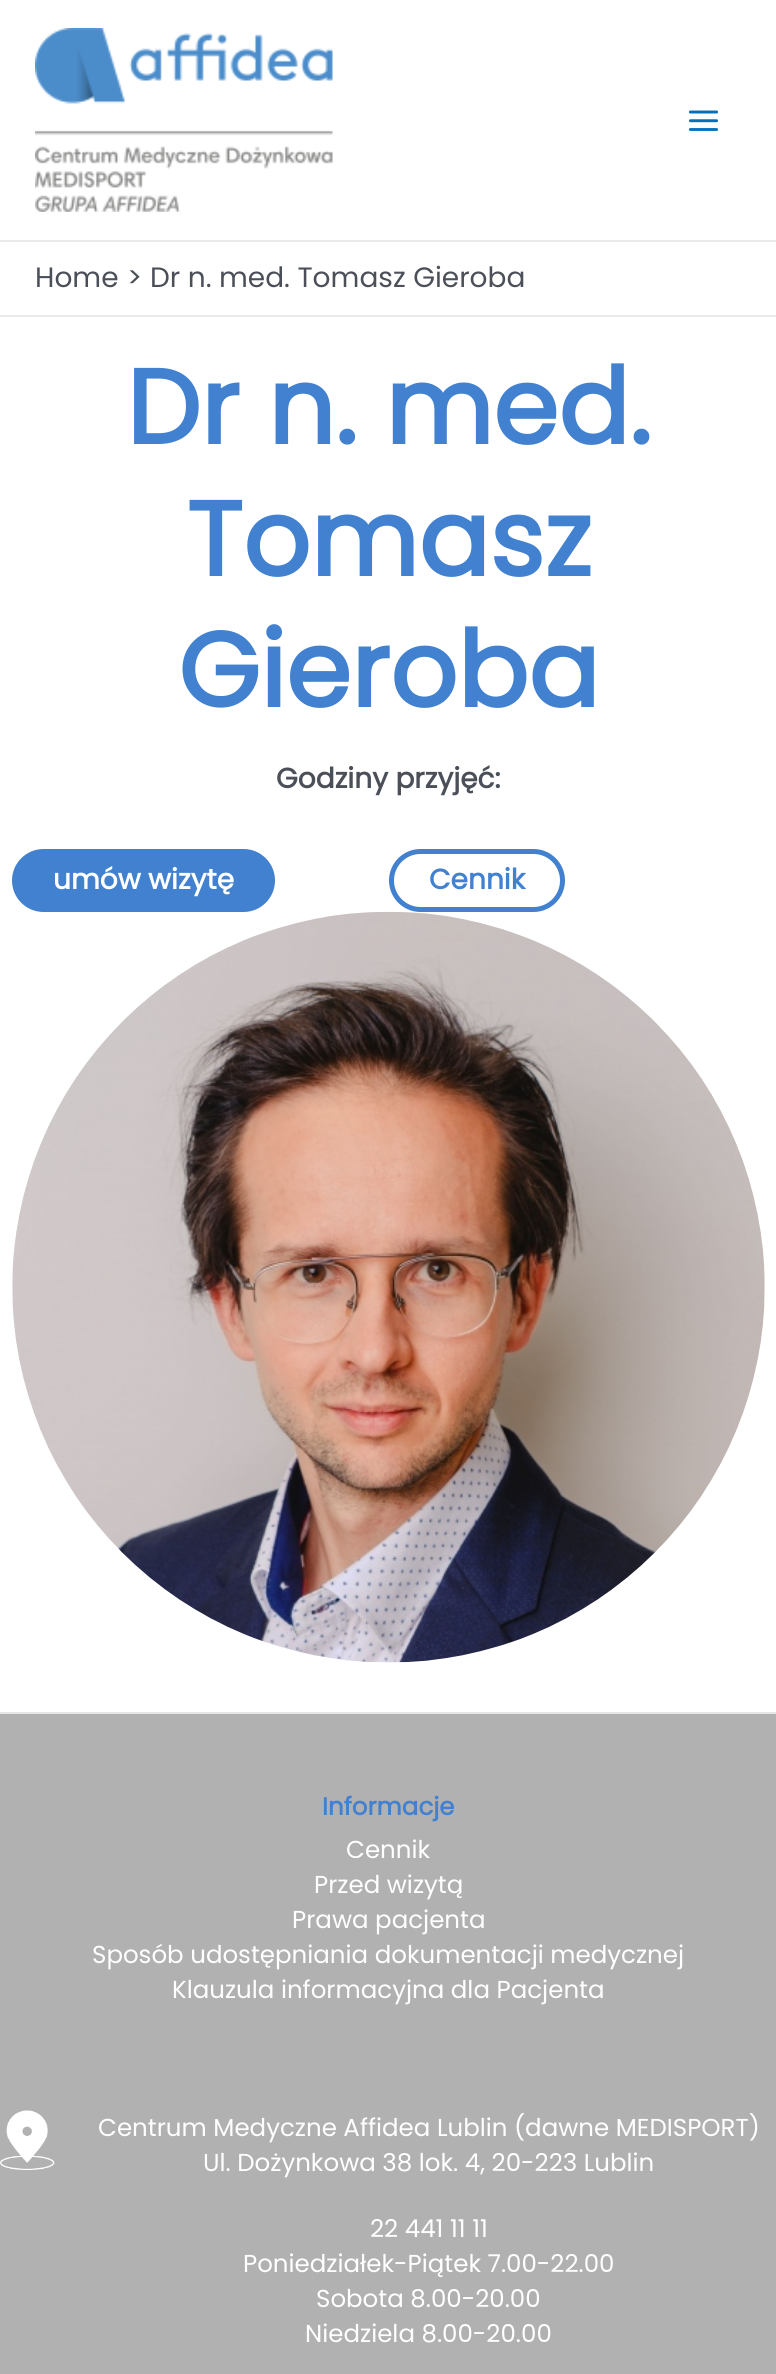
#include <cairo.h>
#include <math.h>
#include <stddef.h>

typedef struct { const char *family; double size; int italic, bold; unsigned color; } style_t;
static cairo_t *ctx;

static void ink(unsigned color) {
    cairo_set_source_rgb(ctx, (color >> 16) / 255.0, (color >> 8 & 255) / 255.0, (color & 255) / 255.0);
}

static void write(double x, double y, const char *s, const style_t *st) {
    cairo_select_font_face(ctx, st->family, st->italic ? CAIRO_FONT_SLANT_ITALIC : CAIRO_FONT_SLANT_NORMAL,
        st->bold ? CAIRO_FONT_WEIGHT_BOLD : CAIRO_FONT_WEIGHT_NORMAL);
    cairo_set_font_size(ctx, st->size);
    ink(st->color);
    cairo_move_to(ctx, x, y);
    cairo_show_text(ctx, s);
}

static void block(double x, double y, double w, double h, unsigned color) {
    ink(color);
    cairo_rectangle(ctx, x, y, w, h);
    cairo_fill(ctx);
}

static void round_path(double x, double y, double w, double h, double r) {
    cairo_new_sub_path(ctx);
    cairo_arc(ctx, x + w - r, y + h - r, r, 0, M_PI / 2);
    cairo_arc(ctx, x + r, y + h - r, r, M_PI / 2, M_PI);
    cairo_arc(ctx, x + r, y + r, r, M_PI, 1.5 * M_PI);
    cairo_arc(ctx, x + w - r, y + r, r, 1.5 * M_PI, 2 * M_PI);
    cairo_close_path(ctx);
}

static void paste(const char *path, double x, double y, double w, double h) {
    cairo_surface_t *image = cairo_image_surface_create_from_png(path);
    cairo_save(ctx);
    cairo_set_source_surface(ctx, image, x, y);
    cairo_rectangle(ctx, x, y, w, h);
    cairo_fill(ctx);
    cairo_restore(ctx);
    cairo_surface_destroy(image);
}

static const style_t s1 = {"Poppins", 28, 0, 0, 0x4b4f58};
static const style_t s2 = {"Poppins", 105, 0, 1, 0x4181d0};
static const style_t s3 = {"Poppins", 28, 0, 1, 0x4b4f58};
static const style_t s4 = {"Poppins", 28, 0, 1, 0xffffff};
static const style_t s5 = {"Poppins", 28, 0, 1, 0x4181d0};
static const style_t s6 = {"Poppins", 24.5, 0, 1, 0x4181d0};
static const style_t s7 = {"Poppins", 24.5, 0, 0, 0xffffff};

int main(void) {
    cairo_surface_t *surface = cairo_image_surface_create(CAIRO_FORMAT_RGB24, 776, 2374);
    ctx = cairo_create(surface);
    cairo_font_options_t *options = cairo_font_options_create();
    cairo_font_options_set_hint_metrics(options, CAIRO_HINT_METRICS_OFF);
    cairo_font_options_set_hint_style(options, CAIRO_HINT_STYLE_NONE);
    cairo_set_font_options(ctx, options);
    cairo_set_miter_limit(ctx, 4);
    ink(0xffffff);
    cairo_paint(ctx);
    block(0, 240, 776, 2, 0xeaeaea);
    paste("pic1.png", 35, 28, 298, 184);
    paste("pic2.png", 688, 110, 31, 21);
    block(0, 315, 776, 2, 0xeaeaea);
    write(35, 287, "Home", &s1);
    write(127, 287, ">", &s1);
    write(150, 287, "Dr n. med. Tomasz Gieroba", &s1);
    write(126, 444, "Dr n. med.", &s2);
    write(186, 576, "Tomasz", &s2);
    write(178, 707, "Gieroba", &s2);
    write(276, 788, "Godziny przyjęć:", &s3);
    ink(0x4181d0);
    round_path(14.5, 851.5, 258, 58, 29);
    cairo_fill_preserve(ctx);
    cairo_set_line_width(ctx, 5);
    cairo_stroke(ctx);
    write(53, 889, "umów wizytę", &s4);
    round_path(391.5, 851.5, 171, 58, 29);
    ink(0x4181d0);
    cairo_stroke(ctx);
    write(429, 889, "Cennik", &s5);
    paste("pic3.png", 12, 911, 753, 752);
    block(0, 1714, 776, 660, 0xb1b1b1);
    block(0, 1712, 776, 2, 0xe6e6e6);
    write(322, 1815, "Informacje", &s6);
    write(346, 1858, "Cennik", &s7);
    write(314, 1893, "Przed wizytą", &s7);
    write(292, 1928, "Prawa pacjenta", &s7);
    write(92, 1963, "Sposób udostępniania dokumentacji medycznej", &s7);
    write(172, 1998, "Klauzula informacyjna dla Pacjenta", &s7);
    paste("pic4.png", 0, 2110, 55, 60);
    write(98, 2136, "Centrum Medyczne Affidea Lublin (dawne MEDISPORT)", &s7);
    write(203, 2171, "Ul. Dożynkowa 38 lok. 4, 20-223 Lublin", &s7);
    write(370, 2237, "22 441 11 11", &s7);
    write(243, 2272, "Poniedziałek-Piątek 7.00-22.00", &s7);
    write(316, 2307, "Sobota 8.00-20.00", &s7);
    write(305, 2342, "Niedziela 8.00-20.00", &s7);
    cairo_surface_write_to_png(surface, "screenshot.png");
    cairo_font_options_destroy(options);
    cairo_destroy(ctx);
    cairo_surface_destroy(surface);
    return 0;
}
